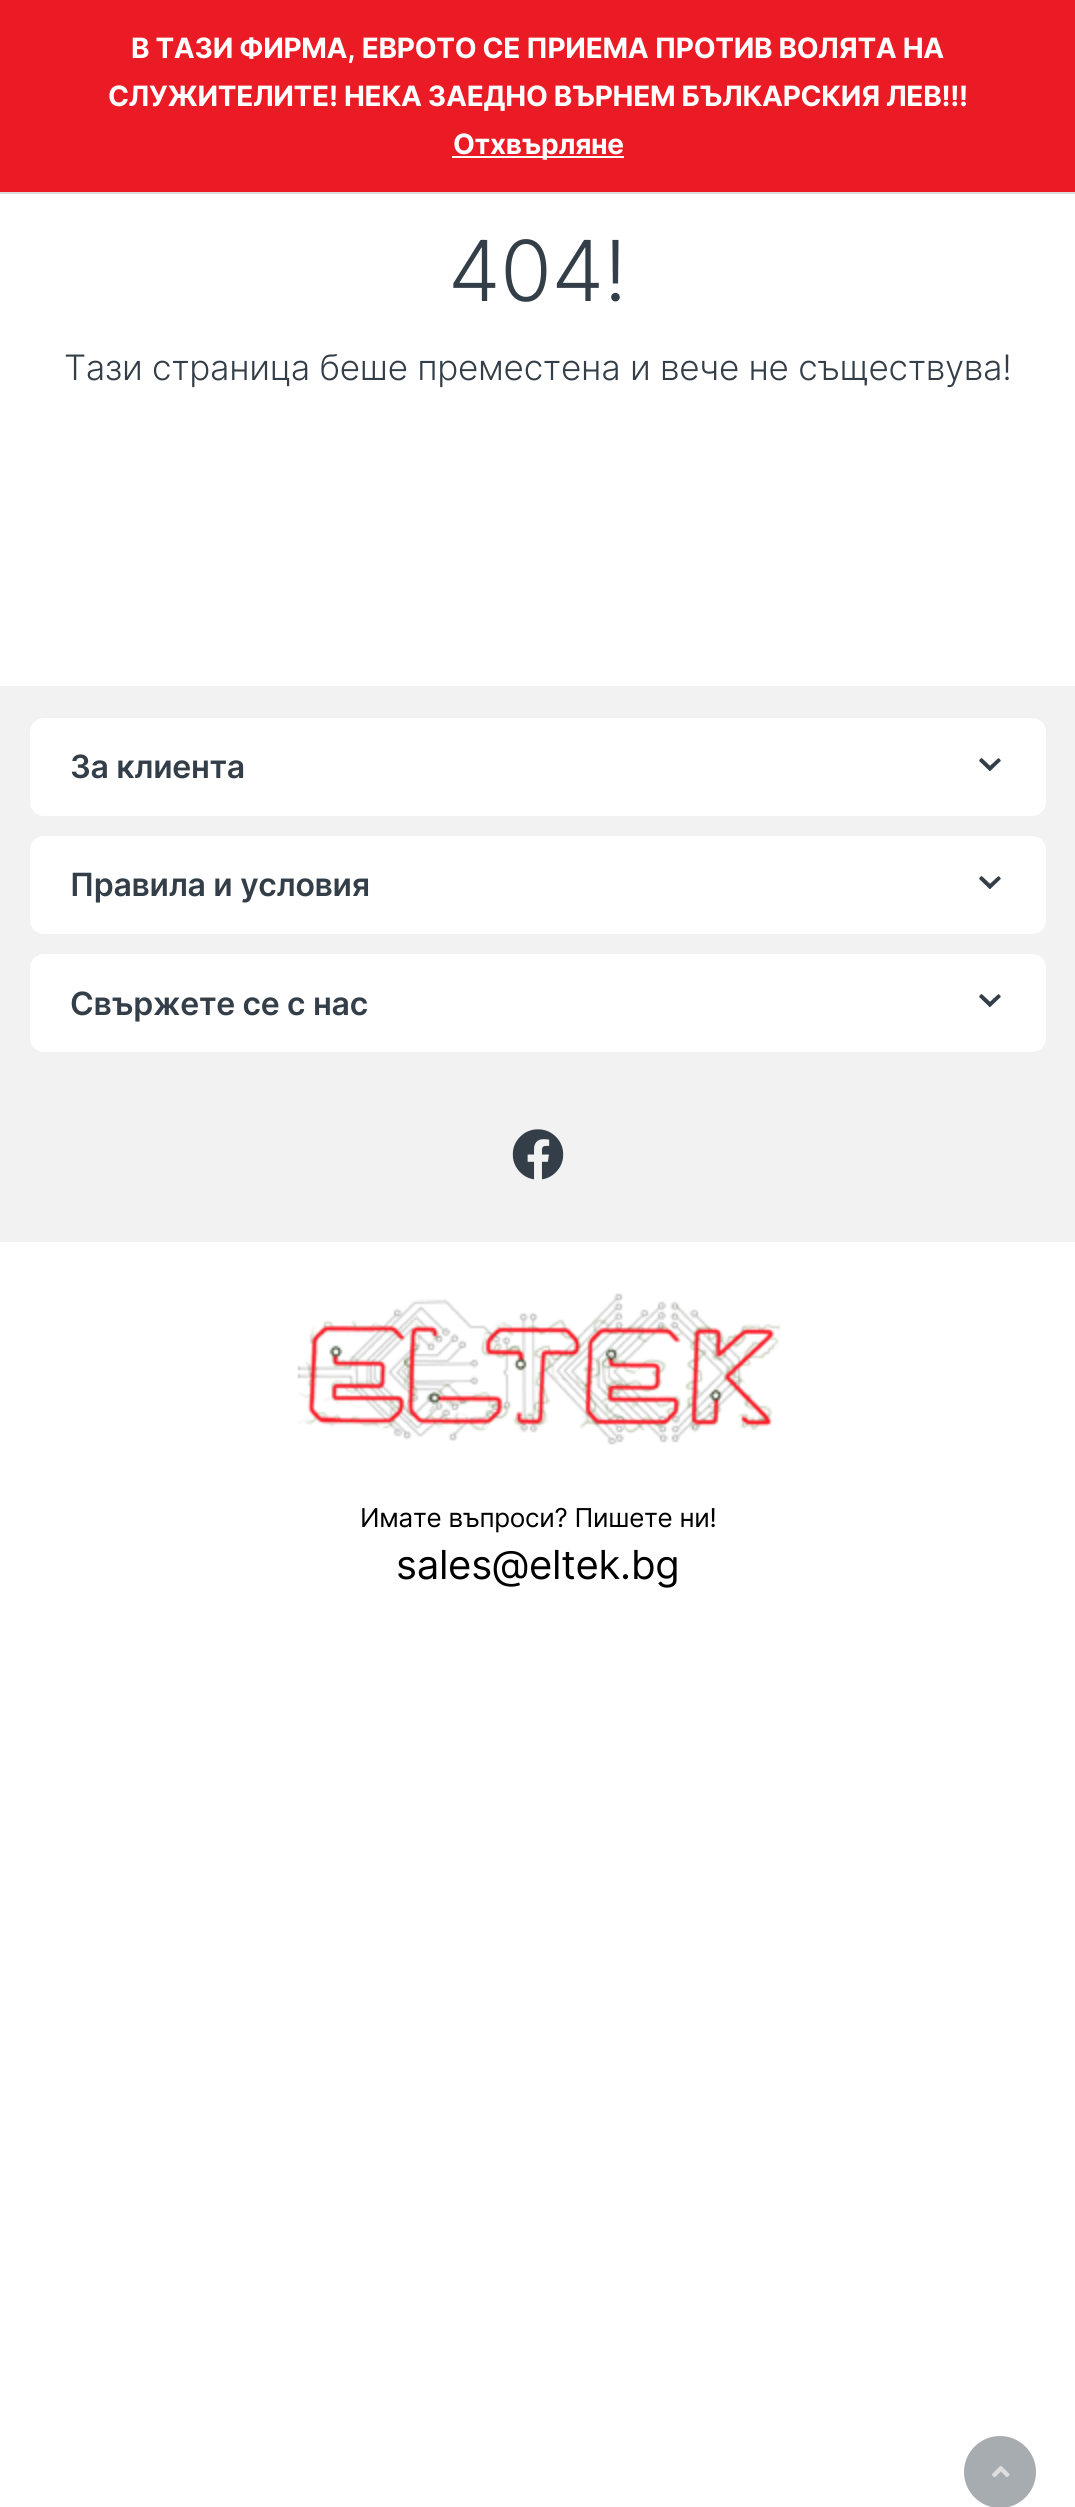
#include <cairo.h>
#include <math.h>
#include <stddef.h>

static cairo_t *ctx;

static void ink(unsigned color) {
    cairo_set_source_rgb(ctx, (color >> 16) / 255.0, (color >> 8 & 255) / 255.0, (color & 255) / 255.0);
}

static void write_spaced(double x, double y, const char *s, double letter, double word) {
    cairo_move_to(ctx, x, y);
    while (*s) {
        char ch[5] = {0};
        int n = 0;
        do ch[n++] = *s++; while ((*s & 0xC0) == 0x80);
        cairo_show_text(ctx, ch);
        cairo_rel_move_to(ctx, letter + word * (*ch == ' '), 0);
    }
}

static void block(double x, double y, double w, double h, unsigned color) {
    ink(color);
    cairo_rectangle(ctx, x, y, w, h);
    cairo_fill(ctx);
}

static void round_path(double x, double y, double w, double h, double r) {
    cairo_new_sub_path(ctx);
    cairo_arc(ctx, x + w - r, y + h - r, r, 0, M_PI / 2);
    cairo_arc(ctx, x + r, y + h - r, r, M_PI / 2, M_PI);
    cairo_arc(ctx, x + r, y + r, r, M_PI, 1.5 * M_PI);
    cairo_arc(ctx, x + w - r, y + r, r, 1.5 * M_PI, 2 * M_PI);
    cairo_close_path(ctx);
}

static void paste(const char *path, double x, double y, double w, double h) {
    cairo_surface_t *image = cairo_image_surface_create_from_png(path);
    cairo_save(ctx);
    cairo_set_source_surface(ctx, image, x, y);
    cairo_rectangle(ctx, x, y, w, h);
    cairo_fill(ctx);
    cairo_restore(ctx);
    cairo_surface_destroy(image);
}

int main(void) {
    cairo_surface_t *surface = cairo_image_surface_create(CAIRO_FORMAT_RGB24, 1075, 2507);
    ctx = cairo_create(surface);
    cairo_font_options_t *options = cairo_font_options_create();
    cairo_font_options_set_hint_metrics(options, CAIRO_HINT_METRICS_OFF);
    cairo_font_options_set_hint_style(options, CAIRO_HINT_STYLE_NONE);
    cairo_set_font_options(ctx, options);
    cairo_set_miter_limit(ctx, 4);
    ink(0xffffff);
    cairo_paint(ctx);
    block(0, 0, 1075, 192, 0xea1b25);
    cairo_select_font_face(ctx, "Inter", CAIRO_FONT_SLANT_NORMAL, CAIRO_FONT_WEIGHT_BOLD);
    cairo_set_font_size(ctx, 28);
    ink(0xffffff);
    write_spaced(131, 58, "В ТАЗИ ФИРМА, ЕВРОТО СЕ ПРИЕМА ПРОТИВ ВОЛЯТА НА", -0.28, 0);
    write_spaced(108, 106, "СЛУЖИТЕЛИТЕ! НЕКА ЗАЕДНО ВЪРНЕМ БЪЛКАРСКИЯ ЛЕВ!!!", -0.28, 0);
    block(452, 156, 172, 2, 0xffffff);
    write_spaced(453, 154, "Отхвърляне", -0.28, 0);
    block(0, 192, 1075, 2, 0xdddddd);
    cairo_select_font_face(ctx, "Inter Light", CAIRO_FONT_SLANT_NORMAL, CAIRO_FONT_WEIGHT_NORMAL);
    cairo_set_font_size(ctx, 84);
    ink(0x333e48);
    write_spaced(448, 301, "404!", -0.28, 0);
    cairo_set_font_size(ctx, 35);
    write_spaced(64, 380, "Тази страница беше преместена и вече не съществува!", -0.28, 0);
    block(0, 686, 1075, 556, 0xf2f2f2);
    ink(0xffffff);
    round_path(30, 718, 1016, 98, 14);
    cairo_fill(ctx);
    cairo_select_font_face(ctx, "Inter SemiBold", CAIRO_FONT_SLANT_NORMAL, CAIRO_FONT_WEIGHT_NORMAL);
    cairo_set_font_size(ctx, 32);
    ink(0x333e48);
    write_spaced(70, 778, "За клиента", -0.28, 0);
    paste("pic1.png", 979, 758, 22, 13);
    ink(0xffffff);
    round_path(30, 836, 1016, 98, 14);
    cairo_fill(ctx);
    ink(0x333e48);
    write_spaced(70, 896, "Правила и условия", -0.28, 0);
    paste("pic1.png", 979, 876, 22, 13);
    ink(0xffffff);
    round_path(30, 954, 1016, 98, 14);
    cairo_fill(ctx);
    ink(0x333e48);
    write_spaced(70, 1015, "Свържете се с нас", -0.28, 0);
    paste("pic1.png", 979, 994, 22, 13);
    paste("pic2.png", 512, 1129, 52, 51);
    paste("pic3.png", 297, 1293, 483, 152);
    cairo_select_font_face(ctx, "Inter", CAIRO_FONT_SLANT_NORMAL, CAIRO_FONT_WEIGHT_NORMAL);
    cairo_set_font_size(ctx, 26);
    ink(0x000000);
    write_spaced(360, 1527, "Имате въпроси? Пишете ни!", -0.28, 0);
    cairo_set_font_size(ctx, 40);
    write_spaced(396, 1579, "sales@eltek.bg", -0.28, 0);
    ink(0xa7acb1);
    cairo_new_path(ctx);
    cairo_arc(ctx, 1000, 2472, 35, 0, 2 * M_PI);
    cairo_fill_preserve(ctx);
    cairo_stroke(ctx);
    paste("pic4.png", 992, 2466, 18, 12);
    cairo_surface_write_to_png(surface, "screenshot.png");
    cairo_font_options_destroy(options);
    cairo_destroy(ctx);
    cairo_surface_destroy(surface);
    return 0;
}
